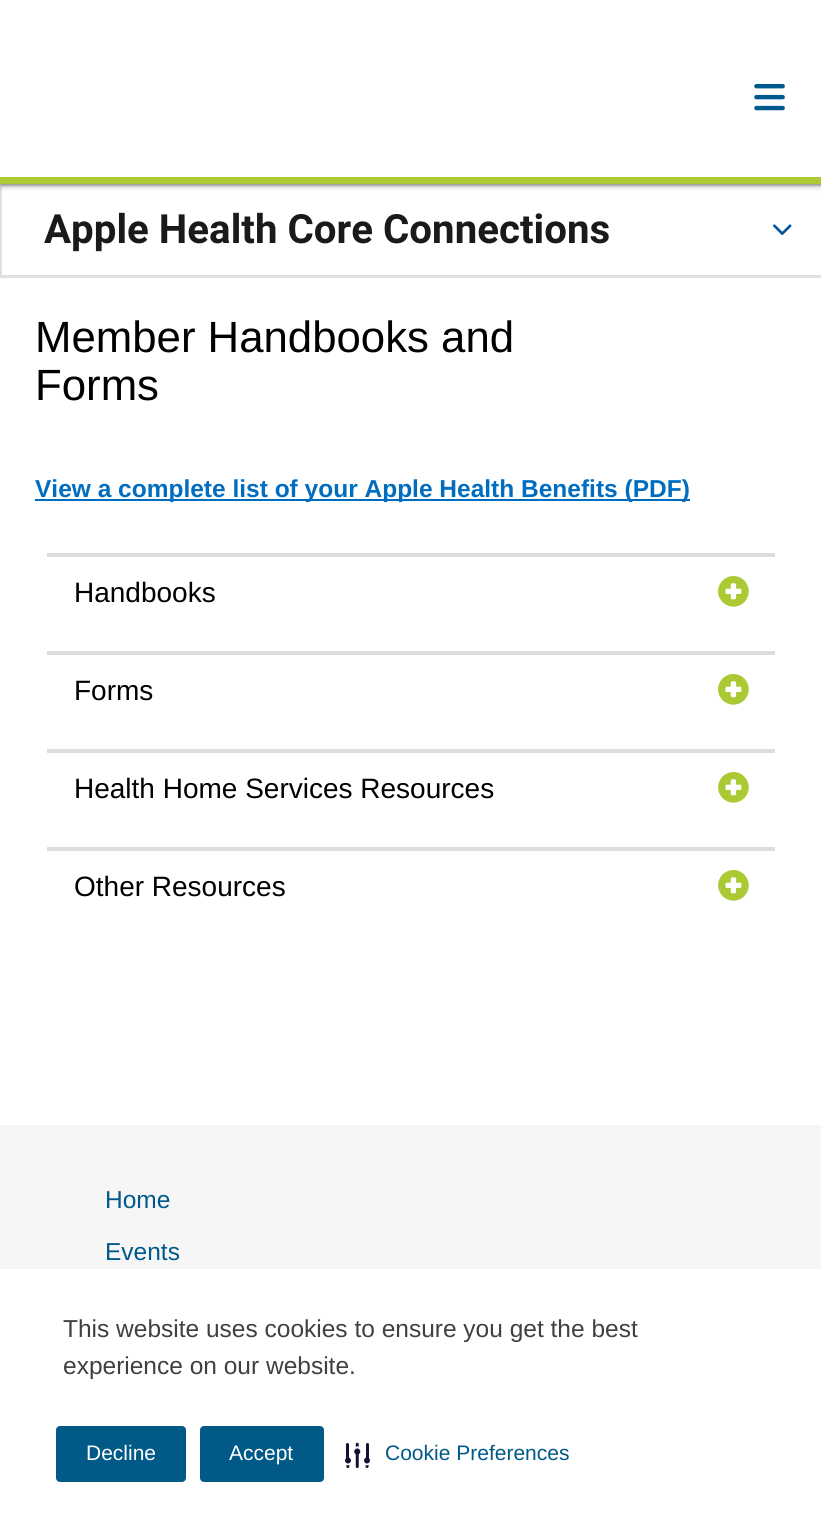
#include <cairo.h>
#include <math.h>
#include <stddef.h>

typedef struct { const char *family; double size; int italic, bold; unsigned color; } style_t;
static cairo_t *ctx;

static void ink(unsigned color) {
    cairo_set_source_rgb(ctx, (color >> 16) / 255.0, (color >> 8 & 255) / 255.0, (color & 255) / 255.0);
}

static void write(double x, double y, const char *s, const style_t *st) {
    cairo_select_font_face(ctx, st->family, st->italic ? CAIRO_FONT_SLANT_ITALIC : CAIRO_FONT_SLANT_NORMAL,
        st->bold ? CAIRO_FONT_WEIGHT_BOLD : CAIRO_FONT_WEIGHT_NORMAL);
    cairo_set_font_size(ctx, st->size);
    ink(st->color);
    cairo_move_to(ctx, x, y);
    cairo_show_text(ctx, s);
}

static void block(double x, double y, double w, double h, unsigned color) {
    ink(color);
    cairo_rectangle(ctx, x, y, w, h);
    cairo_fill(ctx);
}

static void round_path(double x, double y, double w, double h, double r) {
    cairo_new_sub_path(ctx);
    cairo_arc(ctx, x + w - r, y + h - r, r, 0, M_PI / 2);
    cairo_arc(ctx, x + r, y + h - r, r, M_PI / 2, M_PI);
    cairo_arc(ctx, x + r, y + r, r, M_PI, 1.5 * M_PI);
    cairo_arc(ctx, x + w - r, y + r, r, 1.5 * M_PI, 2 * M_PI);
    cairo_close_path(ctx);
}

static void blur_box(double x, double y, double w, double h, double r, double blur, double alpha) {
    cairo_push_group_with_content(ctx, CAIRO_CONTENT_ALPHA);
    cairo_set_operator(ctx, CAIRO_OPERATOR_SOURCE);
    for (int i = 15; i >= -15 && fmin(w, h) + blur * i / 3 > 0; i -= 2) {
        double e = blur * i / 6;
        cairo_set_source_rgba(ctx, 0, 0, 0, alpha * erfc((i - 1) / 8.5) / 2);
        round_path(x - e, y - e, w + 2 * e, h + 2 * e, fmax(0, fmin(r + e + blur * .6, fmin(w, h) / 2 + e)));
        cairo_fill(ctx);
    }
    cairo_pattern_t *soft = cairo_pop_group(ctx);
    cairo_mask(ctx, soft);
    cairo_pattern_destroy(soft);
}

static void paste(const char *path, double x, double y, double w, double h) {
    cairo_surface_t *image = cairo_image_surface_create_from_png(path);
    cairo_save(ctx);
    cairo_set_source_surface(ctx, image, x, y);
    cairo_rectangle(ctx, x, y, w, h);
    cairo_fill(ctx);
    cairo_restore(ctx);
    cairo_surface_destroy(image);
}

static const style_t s1 = {"Roboto", 40.25, 0, 1, 0x1a1a1a};
static const style_t s2 = {"Liberation Sans", 43.75, 0, 0, 0x000000};
static const style_t s3 = {"Liberation Sans", 24.5, 0, 1, 0x006dc1};
static const style_t s4 = {"Liberation Sans", 28, 0, 0, 0x000000};
static const style_t s5 = {"Liberation Sans", 24.5, 0, 0, 0x00598c};
static const style_t s6 = {"Liberation Sans", 24.5, 0, 0, 0x404040};
static const style_t s7 = {"Liberation Sans", 21, 0, 0, 0xffffff};
static const style_t s8 = {"Liberation Sans", 21, 0, 0, 0x005986};

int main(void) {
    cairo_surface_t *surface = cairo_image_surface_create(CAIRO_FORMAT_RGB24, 821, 1538);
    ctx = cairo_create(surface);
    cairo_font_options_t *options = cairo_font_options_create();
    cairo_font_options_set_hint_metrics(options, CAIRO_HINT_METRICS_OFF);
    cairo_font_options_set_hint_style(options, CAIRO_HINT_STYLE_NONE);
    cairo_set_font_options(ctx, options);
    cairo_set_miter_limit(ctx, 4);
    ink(0xffffff);
    cairo_paint(ctx);
    cairo_rectangle(ctx, 1, 185, 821, 92);
    ink(0xe0e0e0);
    cairo_stroke(ctx);
    ink(0x58595b);
    blur_box(0, 0, 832, 184, 0, 3.5, 1);
    block(0, 0, 821, 177, 0xffffff);
    block(0, 177, 821, 7, 0xaac932);
    paste("pic1.png", 754, 84, 31, 27);
    block(2, 275, 819, 1, 0xe0e0e0);
    write(44, 243, "Apple Health Core Connections", &s1);
    paste("pic2.png", 773, 224, 19, 11);
    write(35, 352, "Member Handbooks and", &s2);
    write(35, 400, "Forms", &s2);
    block(35, 499, 655, 2, 0x006dc1);
    write(35, 497, "View a complete list of your Apple Health Benefits (PDF)", &s3);
    block(47, 553, 728, 4, 0xdcddde);
    write(74, 602, "Handbooks", &s4);
    paste("pic3.png", 718, 576, 31, 31);
    block(47, 651, 728, 4, 0xdcddde);
    write(74, 700, "Forms", &s4);
    paste("pic3.png", 718, 674, 31, 31);
    block(47, 749, 728, 4, 0xdcddde);
    write(74, 798, "Health Home Services Resources", &s4);
    paste("pic3.png", 718, 772, 31, 31);
    block(47, 847, 728, 4, 0xdcddde);
    write(74, 896, "Other Resources", &s4);
    paste("pic3.png", 718, 870, 31, 31);
    block(0, 1125, 821, 144, 0xf6f6f6);
    write(105, 1208, "Home", &s5);
    write(105, 1260, "Events", &s5);
    write(63, 1337, "This website uses cookies to ensure you get the best", &s6);
    write(63, 1374, "experience on our website.", &s6);
    ink(0x005986);
    round_path(57, 1427, 128, 54, 3);
    cairo_fill_preserve(ctx);
    cairo_stroke(ctx);
    write(86, 1460, "Decline", &s7);
    ink(0x005986);
    round_path(201, 1427, 122, 54, 3);
    cairo_fill_preserve(ctx);
    cairo_stroke(ctx);
    write(229, 1460, "Accept", &s7);
    paste("pic4.png", 345, 1442, 25, 26);
    write(385, 1460, "Cookie Preferences", &s8);
    cairo_surface_write_to_png(surface, "screenshot.png");
    cairo_font_options_destroy(options);
    cairo_destroy(ctx);
    cairo_surface_destroy(surface);
    return 0;
}
